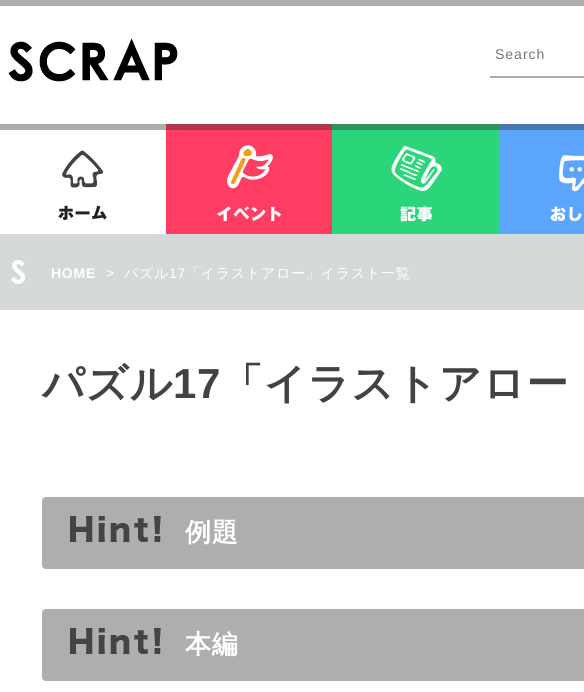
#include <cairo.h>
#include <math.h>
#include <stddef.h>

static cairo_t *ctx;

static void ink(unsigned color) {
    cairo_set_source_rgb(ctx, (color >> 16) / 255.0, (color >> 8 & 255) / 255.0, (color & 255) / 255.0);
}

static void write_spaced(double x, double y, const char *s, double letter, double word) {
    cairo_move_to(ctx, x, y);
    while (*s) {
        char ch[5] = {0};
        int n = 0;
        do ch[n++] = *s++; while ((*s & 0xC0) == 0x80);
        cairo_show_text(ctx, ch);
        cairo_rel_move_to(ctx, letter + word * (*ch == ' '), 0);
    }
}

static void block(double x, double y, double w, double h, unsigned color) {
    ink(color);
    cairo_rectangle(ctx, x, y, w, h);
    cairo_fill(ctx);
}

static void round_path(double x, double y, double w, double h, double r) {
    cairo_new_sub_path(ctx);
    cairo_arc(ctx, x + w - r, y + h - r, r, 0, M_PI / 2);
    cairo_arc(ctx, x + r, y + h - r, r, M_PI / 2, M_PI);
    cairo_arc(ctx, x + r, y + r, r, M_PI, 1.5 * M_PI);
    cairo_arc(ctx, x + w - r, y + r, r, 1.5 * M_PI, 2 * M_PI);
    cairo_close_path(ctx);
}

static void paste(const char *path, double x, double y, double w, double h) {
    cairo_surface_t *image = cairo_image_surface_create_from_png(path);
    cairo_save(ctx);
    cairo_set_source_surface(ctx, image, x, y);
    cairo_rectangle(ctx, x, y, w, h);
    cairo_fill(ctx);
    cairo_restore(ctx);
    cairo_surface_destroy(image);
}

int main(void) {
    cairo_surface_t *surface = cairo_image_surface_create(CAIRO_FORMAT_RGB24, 584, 692);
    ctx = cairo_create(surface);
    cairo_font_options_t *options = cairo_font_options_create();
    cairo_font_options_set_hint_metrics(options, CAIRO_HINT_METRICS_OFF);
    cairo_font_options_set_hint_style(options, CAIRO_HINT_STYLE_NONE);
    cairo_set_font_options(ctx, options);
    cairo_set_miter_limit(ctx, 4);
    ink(0xffffff);
    cairo_paint(ctx);
    block(0, 0, 584, 6, 0xadadad);
    paste("pic1.png", 8, 38, 170, 44);
    block(490, 76, 94, 2, 0xaaaaaa);
    cairo_select_font_face(ctx, "Liberation Sans", CAIRO_FONT_SLANT_NORMAL, CAIRO_FONT_WEIGHT_NORMAL);
    cairo_set_font_size(ctx, 14);
    ink(0x757575);
    write_spaced(495, 59, "Search", 1, 0);
    paste("pic2.png", 0, 124, 166, 110);
    paste("pic3.png", 166, 124, 166, 110);
    paste("pic4.png", 332, 124, 167, 110);
    paste("pic5.png", 499, 124, 85, 110);
    cairo_set_source_rgba(ctx, 0.2, 0.2, 0.2, 0.4);
    cairo_rectangle(ctx, 0, 124, 584, 6);
    cairo_fill(ctx);
    block(0, 234, 584, 76, 0xd5d9d9);
    paste("pic6.png", 11, 260, 14, 24);
    cairo_select_font_face(ctx, "Liberation Sans", CAIRO_FONT_SLANT_NORMAL, CAIRO_FONT_WEIGHT_BOLD);
    ink(0xffffff);
    write_spaced(51, 278, "HOME", 0.75, 0);
    cairo_select_font_face(ctx, "Liberation Sans", CAIRO_FONT_SLANT_NORMAL, CAIRO_FONT_WEIGHT_NORMAL);
    write_spaced(106, 278, ">", 0.75, 0);
    cairo_select_font_face(ctx, "WenQuanYi Zen Hei Medium", CAIRO_FONT_SLANT_NORMAL, CAIRO_FONT_WEIGHT_NORMAL);
    write_spaced(124, 278, "パズル", 0.75, 0);
    cairo_select_font_face(ctx, "Liberation Sans", CAIRO_FONT_SLANT_NORMAL, CAIRO_FONT_WEIGHT_NORMAL);
    write_spaced(169, 278, "17", 0.75, 0);
    cairo_select_font_face(ctx, "WenQuanYi Zen Hei Medium", CAIRO_FONT_SLANT_NORMAL, CAIRO_FONT_WEIGHT_NORMAL);
    write_spaced(186, 278, "「イラストアロー」イラスト一覧", 0.75, 0);
    cairo_select_font_face(ctx, "WenQuanYi Zen Hei", CAIRO_FONT_SLANT_NORMAL, CAIRO_FONT_WEIGHT_BOLD);
    cairo_set_font_size(ctx, 42);
    ink(0x424242);
    write_spaced(42, 398, "パズル", 0.75, 0);
    cairo_select_font_face(ctx, "Liberation Sans", CAIRO_FONT_SLANT_NORMAL, CAIRO_FONT_WEIGHT_BOLD);
    write_spaced(173, 398, "17", 0.75, 0);
    cairo_select_font_face(ctx, "WenQuanYi Zen Hei", CAIRO_FONT_SLANT_NORMAL, CAIRO_FONT_WEIGHT_BOLD);
    write_spaced(221, 398, "「イラストアロー", 0.75, 0);
    round_path(43.5, 498.5, 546, 69, 2.5);
    ink(0xaeaeb0);
    cairo_set_line_width(ctx, 3);
    cairo_stroke(ctx);
    block(45, 500, 539, 66, 0xaeaeb0);
    paste("pic7.png", 69, 516, 92, 26);
    cairo_set_font_size(ctx, 26);
    ink(0xffffff);
    write_spaced(185, 541, "例題", 0.75, 0);
    round_path(43.5, 610.5, 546, 69, 2.5);
    ink(0xaeaeb0);
    cairo_stroke(ctx);
    block(45, 612, 539, 66, 0xaeaeb0);
    paste("pic7.png", 69, 628, 92, 26);
    ink(0xffffff);
    write_spaced(185, 653, "本編", 0.75, 0);
    cairo_surface_write_to_png(surface, "screenshot.png");
    cairo_font_options_destroy(options);
    cairo_destroy(ctx);
    cairo_surface_destroy(surface);
    return 0;
}
